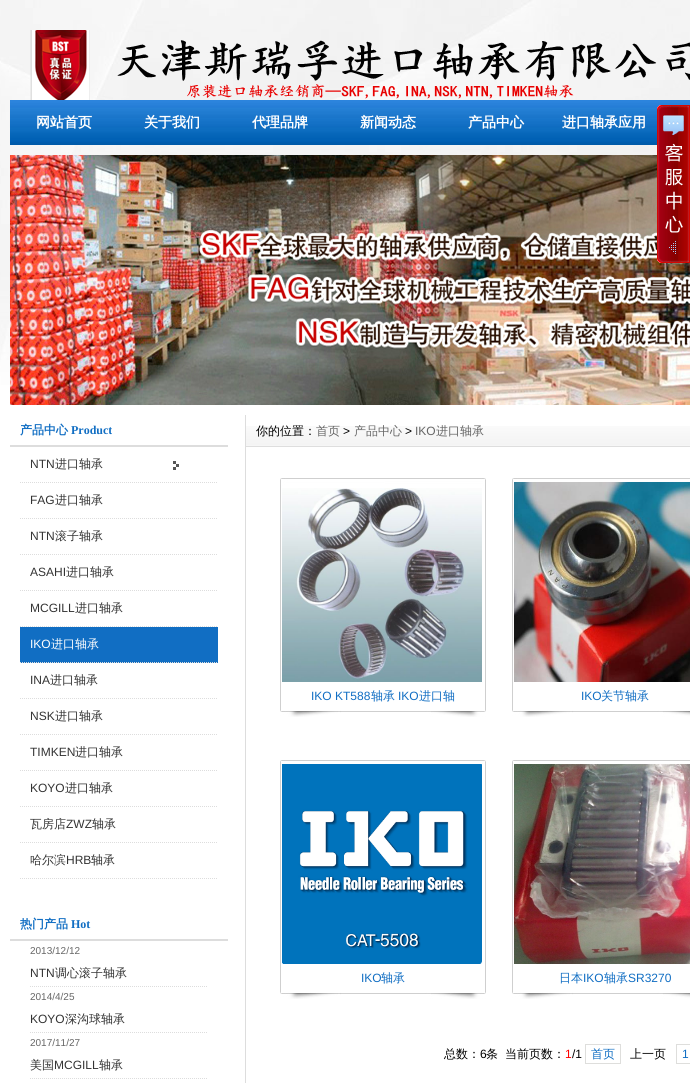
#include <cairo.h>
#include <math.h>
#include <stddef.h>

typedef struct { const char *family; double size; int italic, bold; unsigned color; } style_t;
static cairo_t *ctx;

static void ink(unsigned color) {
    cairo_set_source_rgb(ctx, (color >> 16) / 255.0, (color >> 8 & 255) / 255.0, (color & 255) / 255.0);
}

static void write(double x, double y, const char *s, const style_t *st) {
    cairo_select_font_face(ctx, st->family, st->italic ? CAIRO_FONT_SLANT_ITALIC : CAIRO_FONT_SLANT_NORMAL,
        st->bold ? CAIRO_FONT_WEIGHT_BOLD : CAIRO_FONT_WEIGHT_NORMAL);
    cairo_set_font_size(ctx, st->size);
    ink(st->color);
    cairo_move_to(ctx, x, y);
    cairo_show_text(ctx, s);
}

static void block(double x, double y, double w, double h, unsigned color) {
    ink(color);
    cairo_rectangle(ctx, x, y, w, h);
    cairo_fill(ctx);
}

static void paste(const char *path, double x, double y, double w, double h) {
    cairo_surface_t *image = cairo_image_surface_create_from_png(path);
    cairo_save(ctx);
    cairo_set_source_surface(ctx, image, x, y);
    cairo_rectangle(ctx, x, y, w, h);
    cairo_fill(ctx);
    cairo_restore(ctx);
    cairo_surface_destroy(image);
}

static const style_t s1 = {"WenQuanYi Zen Hei", 14, 0, 1, 0xffffff};
static const style_t s2 = {"WenQuanYi Zen Hei", 12, 0, 1, 0x116ec3};
static const style_t s3 = {"Liberation Serif", 12, 0, 1, 0x116ec3};
static const style_t s4 = {"Liberation Sans", 12, 0, 0, 0x333333};
static const style_t s5 = {"WenQuanYi Zen Hei Medium", 12, 0, 0, 0x333333};
static const style_t s6 = {"Liberation Sans", 12, 0, 0, 0xffffff};
static const style_t s7 = {"WenQuanYi Zen Hei Medium", 12, 0, 0, 0xffffff};
static const style_t s8 = {"Liberation Sans", 10, 0, 0, 0x666666};
static const style_t s9 = {"WenQuanYi Zen Hei Medium", 12, 0, 0, 0x000000};
static const style_t s10 = {"WenQuanYi Zen Hei Medium", 12, 0, 0, 0x666666};
static const style_t s11 = {"Liberation Sans", 12, 0, 0, 0x000000};
static const style_t s12 = {"Liberation Sans", 12, 0, 0, 0x666666};
static const style_t s13 = {"Liberation Sans", 12, 0, 0, 0x116ec3};
static const style_t s14 = {"WenQuanYi Zen Hei Medium", 12, 0, 0, 0x116ec3};
static const style_t s15 = {"Liberation Sans", 12, 0, 0, 0xff0000};

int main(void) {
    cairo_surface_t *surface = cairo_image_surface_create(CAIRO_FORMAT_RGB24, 690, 1083);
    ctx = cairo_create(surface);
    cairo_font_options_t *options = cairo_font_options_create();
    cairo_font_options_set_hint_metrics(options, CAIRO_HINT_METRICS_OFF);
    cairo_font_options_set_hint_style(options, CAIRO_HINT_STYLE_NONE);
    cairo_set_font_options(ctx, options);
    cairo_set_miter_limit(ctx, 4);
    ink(0xffffff);
    cairo_paint(ctx);
    paste("pic1.png", 0, 0, 690, 385);
    paste("pic4.png", 10, 100, 680, 45);
    paste("pic5.png", 10, 155, 680, 250);
    paste("pic2.png", 657, 105, 33, 158);
    paste("pic3.png", 30, 30, 660, 70);
    write(36, 127, "网站首页", &s1);
    write(144, 127, "关于我们", &s1);
    write(252, 127, "代理品牌", &s1);
    write(360, 127, "新闻动态", &s1);
    write(468, 127, "产品中心", &s1);
    write(562, 127, "进口轴承应用", &s1);
    block(10, 445, 218, 2, 0xdddddd);
    write(20, 434, "产品中心", &s2);
    write(71, 434, "Product", &s3);
    paste("pic6.png", 173, 461, 6, 9);
    cairo_new_path(ctx);
    cairo_move_to(ctx, 20, 482.5);
    cairo_line_to(ctx, 218, 482.5);
    ink(0xdddddd);
    cairo_set_line_width(ctx, 1);
    cairo_set_dash(ctx, (double[]){1, 1}, 2, 0);
    cairo_stroke(ctx);
    write(30, 468, "NTN", &s4);
    write(55, 468, "进口轴承", &s5);
    cairo_new_path(ctx);
    cairo_move_to(ctx, 20, 518.5);
    cairo_line_to(ctx, 218, 518.5);
    ink(0xdddddd);
    cairo_stroke(ctx);
    write(30, 504, "FAG", &s4);
    write(55, 504, "进口轴承", &s5);
    cairo_new_path(ctx);
    cairo_move_to(ctx, 20, 554.5);
    cairo_line_to(ctx, 218, 554.5);
    ink(0xdddddd);
    cairo_stroke(ctx);
    write(30, 540, "NTN", &s4);
    write(55, 540, "滚子轴承", &s5);
    cairo_new_path(ctx);
    cairo_move_to(ctx, 20, 590.5);
    cairo_line_to(ctx, 218, 590.5);
    ink(0xdddddd);
    cairo_stroke(ctx);
    write(30, 576, "ASAHI", &s4);
    write(66, 576, "进口轴承", &s5);
    cairo_new_path(ctx);
    cairo_move_to(ctx, 20, 626.5);
    cairo_line_to(ctx, 218, 626.5);
    ink(0xdddddd);
    cairo_stroke(ctx);
    write(30, 612, "MCGILL", &s4);
    write(75, 612, "进口轴承", &s5);
    block(20, 627, 198, 36, 0x116ec3);
    cairo_new_path(ctx);
    cairo_move_to(ctx, 20, 662.5);
    cairo_line_to(ctx, 218, 662.5);
    ink(0xdddddd);
    cairo_stroke(ctx);
    write(30, 648, "IKO", &s6);
    write(51, 648, "进口轴承", &s7);
    cairo_new_path(ctx);
    cairo_move_to(ctx, 20, 698.5);
    cairo_line_to(ctx, 218, 698.5);
    ink(0xdddddd);
    cairo_stroke(ctx);
    write(30, 684, "INA", &s4);
    write(50, 684, "进口轴承", &s5);
    cairo_new_path(ctx);
    cairo_move_to(ctx, 20, 734.5);
    cairo_line_to(ctx, 218, 734.5);
    ink(0xdddddd);
    cairo_stroke(ctx);
    write(30, 720, "NSK", &s4);
    write(55, 720, "进口轴承", &s5);
    cairo_new_path(ctx);
    cairo_move_to(ctx, 20, 770.5);
    cairo_line_to(ctx, 218, 770.5);
    ink(0xdddddd);
    cairo_stroke(ctx);
    write(30, 756, "TIMKEN", &s4);
    write(75, 756, "进口轴承", &s5);
    cairo_new_path(ctx);
    cairo_move_to(ctx, 20, 806.5);
    cairo_line_to(ctx, 218, 806.5);
    ink(0xdddddd);
    cairo_stroke(ctx);
    write(30, 792, "KOYO", &s4);
    write(65, 792, "进口轴承", &s5);
    cairo_new_path(ctx);
    cairo_move_to(ctx, 20, 842.5);
    cairo_line_to(ctx, 218, 842.5);
    ink(0xdddddd);
    cairo_stroke(ctx);
    write(30, 828, "瓦房店", &s5);
    write(66, 828, "ZWZ", &s4);
    write(92, 828, "轴承", &s5);
    cairo_new_path(ctx);
    cairo_move_to(ctx, 20, 878.5);
    cairo_line_to(ctx, 218, 878.5);
    ink(0xdddddd);
    cairo_stroke(ctx);
    write(30, 864, "哈尔滨", &s5);
    write(66, 864, "HRB", &s4);
    write(91, 864, "轴承", &s5);
    block(10, 939, 218, 2, 0xdddddd);
    write(20, 928, "热门产品", &s2);
    write(71, 928, "Hot", &s3);
    write(30, 954, "2013/12/12", &s8);
    cairo_new_path(ctx);
    cairo_move_to(ctx, 30, 986.5);
    cairo_line_to(ctx, 208, 986.5);
    ink(0xdddddd);
    cairo_stroke(ctx);
    write(30, 977, "NTN", &s4);
    write(55, 977, "调心滚子轴承", &s5);
    write(30, 1000, "2014/4/25", &s8);
    cairo_new_path(ctx);
    cairo_move_to(ctx, 30, 1032.5);
    cairo_line_to(ctx, 208, 1032.5);
    ink(0xdddddd);
    cairo_stroke(ctx);
    write(30, 1023, "KOYO", &s4);
    write(65, 1023, "深沟球轴承", &s5);
    write(30, 1046, "2017/11/27", &s8);
    cairo_new_path(ctx);
    cairo_move_to(ctx, 30, 1078.5);
    cairo_line_to(ctx, 208, 1078.5);
    ink(0xdddddd);
    cairo_stroke(ctx);
    write(30, 1069, "美国", &s5);
    write(54, 1069, "MCGILL", &s4);
    write(99, 1069, "轴承", &s5);
    block(245, 415, 1, 668, 0xdddddd);
    paste("pic7.png", 246, 426, 444, 21);
    write(256, 435, "你的位置：", &s9);
    write(316, 435, "首页", &s10);
    write(343, 435, ">", &s11);
    write(354, 435, "产品中心", &s10);
    write(405, 435, ">", &s11);
    write(415, 435, "IKO", &s12);
    write(436, 435, "进口轴承", &s10);
    paste("pic8.png", 280, 478, 206, 239);
    paste("pic9.png", 282, 488, 200, 194);
    write(311, 700, "IKO KT588", &s13);
    write(371, 700, "轴承", &s14);
    write(398, 700, "IKO", &s13);
    write(419, 700, "进口轴", &s14);
    paste("pic10.png", 512, 478, 178, 239);
    paste("pic11.png", 514, 482, 176, 200);
    write(581, 700, "IKO", &s13);
    write(601, 700, "关节轴承", &s14);
    paste("pic8.png", 280, 760, 206, 239);
    paste("pic12.png", 282, 764, 200, 200);
    write(361, 982, "IKO", &s13);
    write(381, 982, "轴承", &s14);
    paste("pic10.png", 512, 760, 178, 239);
    paste("pic13.png", 514, 764, 176, 200);
    write(559, 982, "日本", &s14);
    write(583, 982, "IKO", &s13);
    write(604, 982, "轴承", &s14);
    write(628, 982, "SR3270", &s13);
    write(444, 1058, "总数：", &s9);
    write(480, 1058, "6", &s11);
    write(486, 1058, "条", &s9);
    write(505, 1058, "当前页数：", &s9);
    write(565, 1058, "1", &s15);
    write(572, 1058, "/1", &s11);
    cairo_rectangle(ctx, 585.5, 1044.5, 35, 19);
    ink(0xdededc);
    cairo_set_dash(ctx, NULL, 0, 0);
    cairo_stroke(ctx);
    write(591, 1058, "首页", &s14);
    write(630, 1058, "上一页", &s9);
    cairo_rectangle(ctx, 676.5, 1044.5, 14, 19);
    ink(0xdededc);
    cairo_stroke(ctx);
    write(682, 1058, "1", &s13);
    cairo_surface_write_to_png(surface, "screenshot.png");
    cairo_font_options_destroy(options);
    cairo_destroy(ctx);
    cairo_surface_destroy(surface);
    return 0;
}
